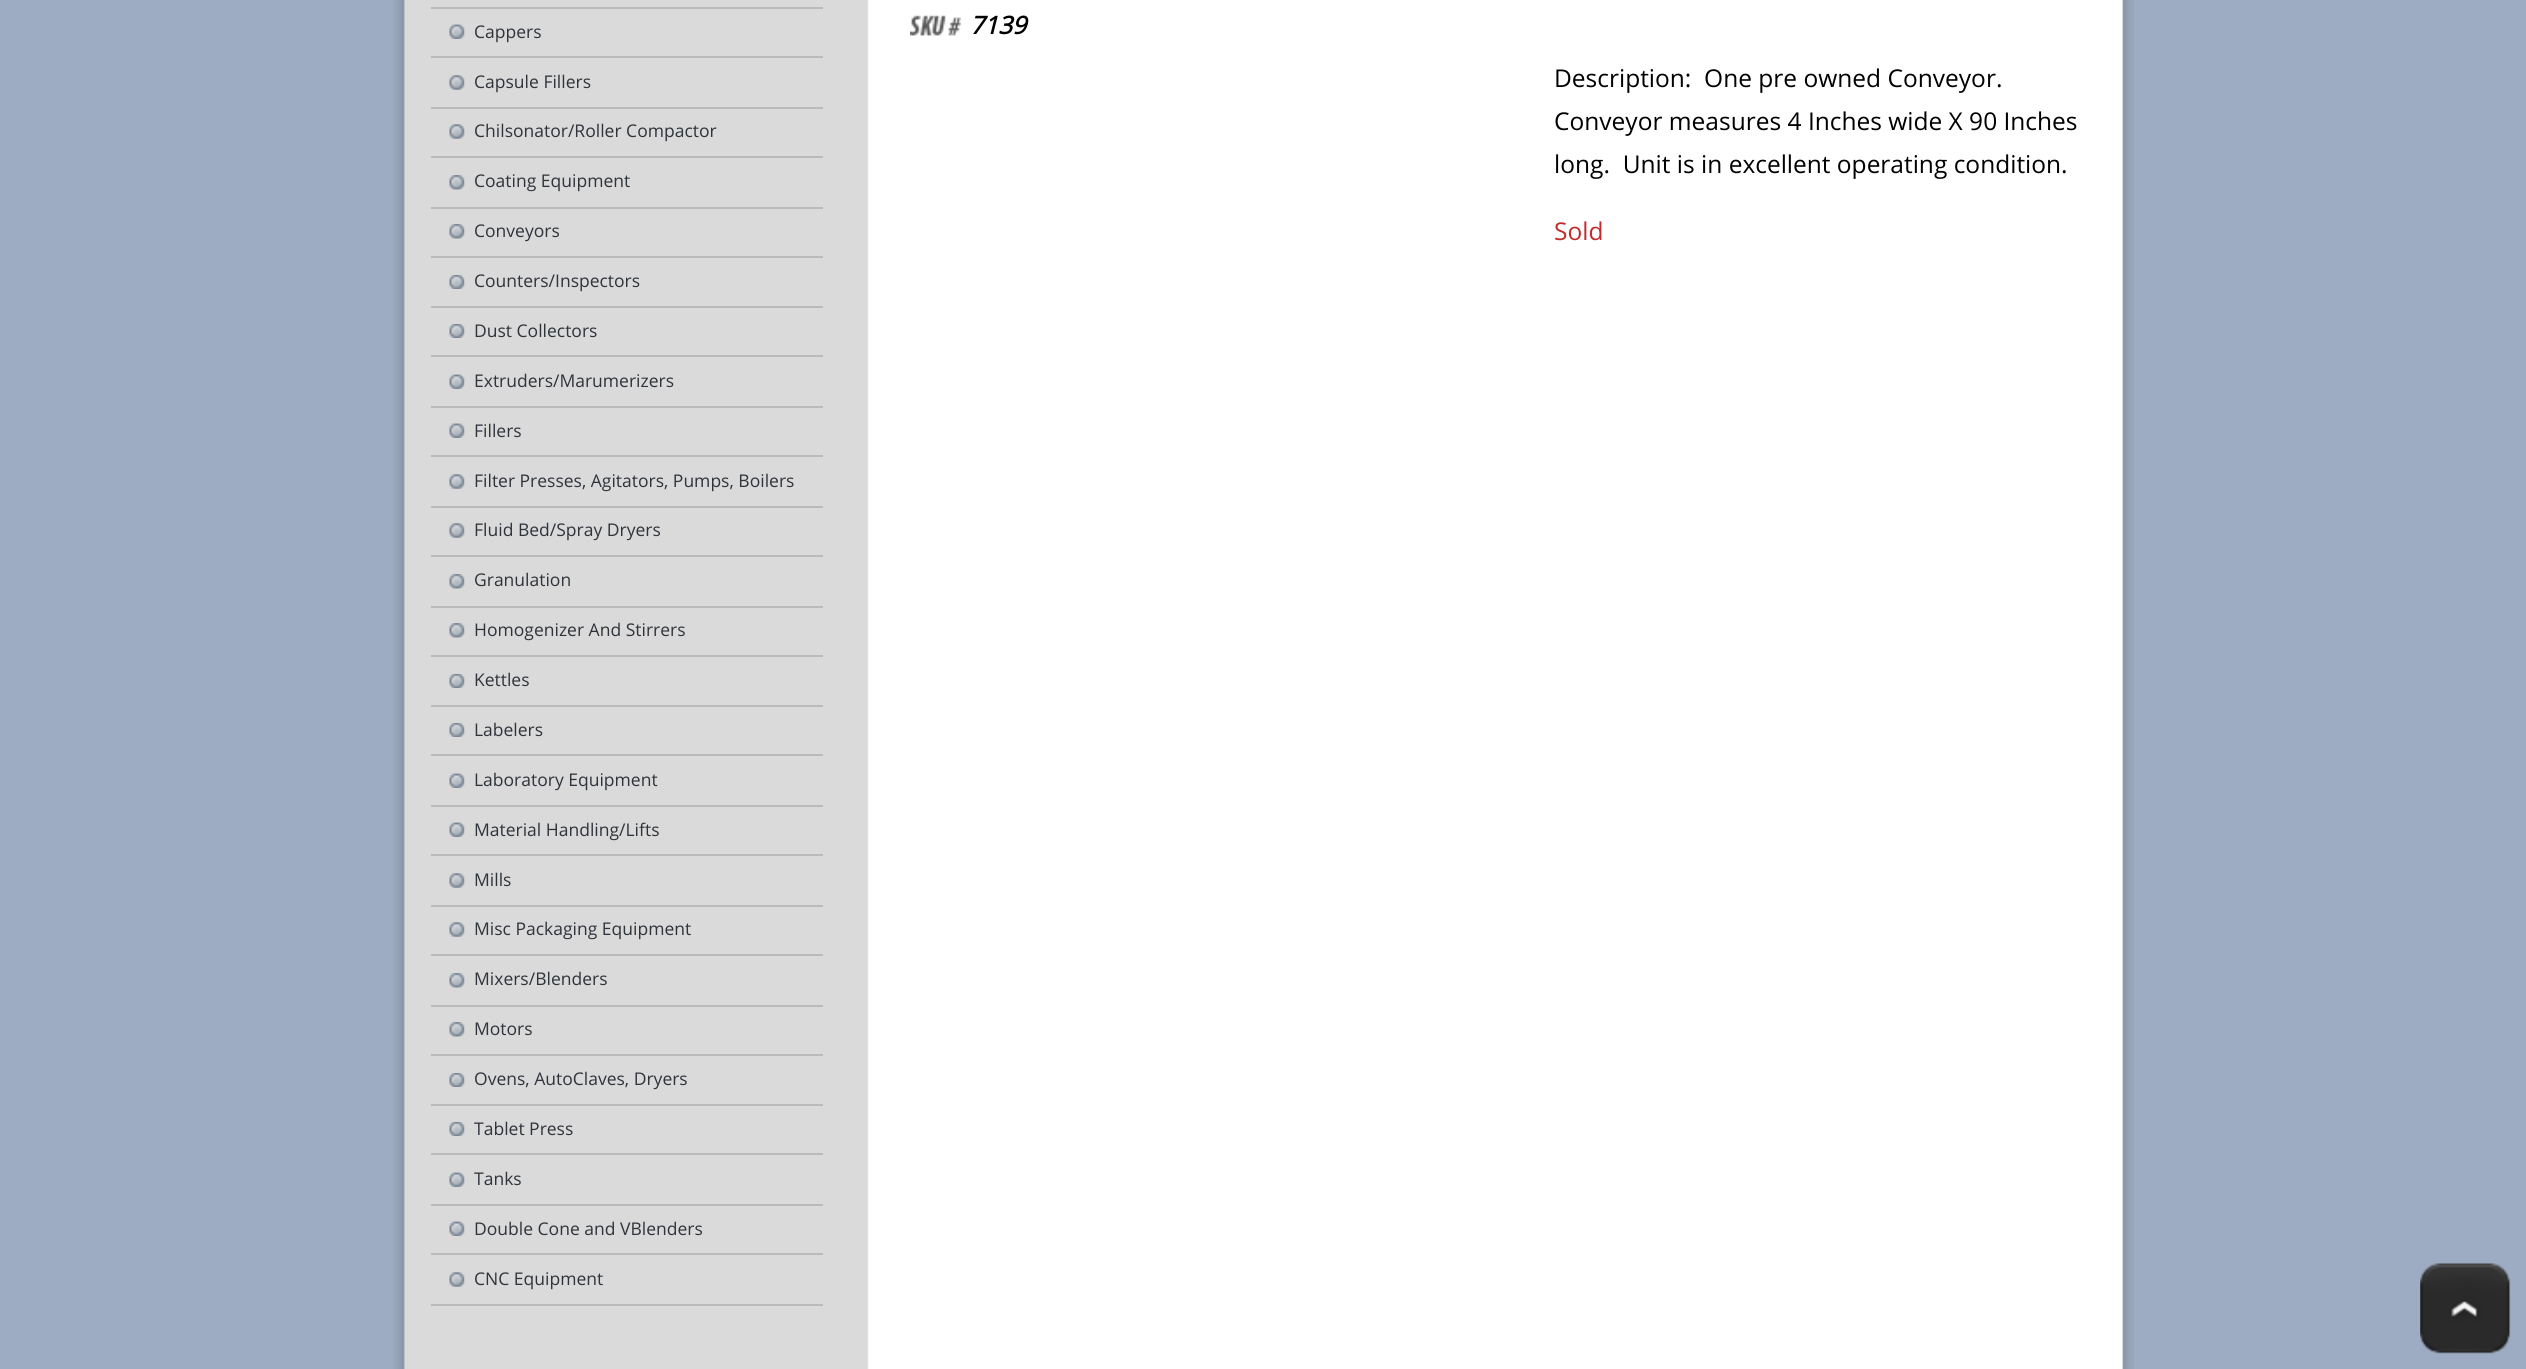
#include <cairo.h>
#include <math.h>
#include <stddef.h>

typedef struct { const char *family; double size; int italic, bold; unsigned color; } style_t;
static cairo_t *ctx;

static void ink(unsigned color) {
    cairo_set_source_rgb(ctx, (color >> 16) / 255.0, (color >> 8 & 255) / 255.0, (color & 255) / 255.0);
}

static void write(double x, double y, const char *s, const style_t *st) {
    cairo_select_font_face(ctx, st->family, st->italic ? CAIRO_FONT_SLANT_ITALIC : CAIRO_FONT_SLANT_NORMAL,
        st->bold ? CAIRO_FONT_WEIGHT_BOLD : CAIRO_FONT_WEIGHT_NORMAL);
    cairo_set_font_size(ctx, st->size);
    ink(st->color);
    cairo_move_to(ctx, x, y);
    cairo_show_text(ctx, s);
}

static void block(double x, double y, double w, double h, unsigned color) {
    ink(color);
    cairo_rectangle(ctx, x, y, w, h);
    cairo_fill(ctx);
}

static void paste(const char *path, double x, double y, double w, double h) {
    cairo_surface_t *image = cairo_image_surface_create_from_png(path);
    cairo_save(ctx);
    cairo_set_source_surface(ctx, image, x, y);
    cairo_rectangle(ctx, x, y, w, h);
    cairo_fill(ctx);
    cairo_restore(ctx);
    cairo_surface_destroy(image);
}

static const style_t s1 = {"Open Sans", 17.5, 0, 0, 0x2f343b};
static const style_t s2 = {"Open Sans", 24.5, 1, 1, 0x000000};
static const style_t s3 = {"Open Sans", 24.5, 0, 0, 0x000000};
static const style_t s4 = {"Open Sans", 24.5, 0, 0, 0xc22b2b};

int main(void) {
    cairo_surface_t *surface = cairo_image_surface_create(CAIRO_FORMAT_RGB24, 2526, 1369);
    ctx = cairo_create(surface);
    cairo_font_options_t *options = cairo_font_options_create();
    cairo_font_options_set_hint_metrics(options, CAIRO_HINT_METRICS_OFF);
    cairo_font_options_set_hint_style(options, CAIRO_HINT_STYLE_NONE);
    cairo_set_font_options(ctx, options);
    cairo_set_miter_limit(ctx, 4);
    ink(0x9dacc2);
    cairo_paint(ctx);
    paste("pic1.png", 393, 0, 1741, 1369);
    block(431, 7, 392, 2, 0xbababa);
    paste("pic2.png", 449, 24, 16, 15);
    block(431, 56, 392, 2, 0xbababa);
    paste("pic3.png", 449, 24, 16, 15);
    write(474, 38, "Cappers", &s1);
    paste("pic4.png", 449, 75, 16, 15);
    block(431, 107, 392, 2, 0xbababa);
    paste("pic5.png", 449, 75, 16, 15);
    write(474, 88, "Capsule Fillers", &s1);
    paste("pic4.png", 449, 124, 16, 15);
    block(431, 156, 392, 2, 0xbababa);
    paste("pic5.png", 449, 124, 16, 15);
    write(474, 137, "Chilsonator/Roller Compactor", &s1);
    paste("pic6.png", 449, 175, 16, 15);
    block(431, 207, 392, 2, 0xbababa);
    paste("pic7.png", 449, 175, 16, 15);
    write(474, 187, "Coating Equipment", &s1);
    paste("pic6.png", 449, 224, 16, 15);
    block(431, 256, 392, 2, 0xbababa);
    paste("pic7.png", 449, 224, 16, 15);
    write(474, 237, "Conveyors", &s1);
    paste("pic8.png", 449, 275, 16, 14);
    block(431, 306, 392, 2, 0xbababa);
    paste("pic9.png", 449, 275, 16, 14);
    write(474, 287, "Counters/Inspectors", &s1);
    paste("pic8.png", 449, 324, 16, 14);
    block(431, 355, 392, 2, 0xbababa);
    paste("pic9.png", 449, 324, 16, 14);
    write(474, 337, "Dust Collectors", &s1);
    paste("pic2.png", 449, 374, 16, 15);
    block(431, 406, 392, 2, 0xbababa);
    paste("pic3.png", 449, 374, 16, 15);
    write(474, 387, "Extruders/Marumerizers", &s1);
    paste("pic2.png", 449, 423, 16, 15);
    block(431, 455, 392, 2, 0xbababa);
    paste("pic3.png", 449, 423, 16, 15);
    write(474, 437, "Fillers", &s1);
    paste("pic4.png", 449, 474, 16, 15);
    block(431, 506, 392, 2, 0xbababa);
    paste("pic5.png", 449, 474, 16, 15);
    write(474, 487, "Filter Presses, Agitators, Pumps, Boilers", &s1);
    paste("pic4.png", 449, 523, 16, 15);
    block(431, 555, 392, 2, 0xbababa);
    paste("pic5.png", 449, 523, 16, 15);
    write(474, 536, "Fluid Bed/Spray Dryers", &s1);
    paste("pic6.png", 449, 574, 16, 15);
    block(431, 606, 392, 2, 0xbababa);
    paste("pic7.png", 449, 574, 16, 15);
    write(474, 586, "Granulation", &s1);
    paste("pic6.png", 449, 623, 16, 15);
    block(431, 655, 392, 2, 0xbababa);
    paste("pic7.png", 449, 623, 16, 15);
    write(474, 636, "Homogenizer And Stirrers", &s1);
    paste("pic8.png", 449, 674, 16, 14);
    block(431, 705, 392, 2, 0xbababa);
    paste("pic9.png", 449, 674, 16, 14);
    write(474, 686, "Kettles", &s1);
    paste("pic8.png", 449, 723, 16, 14);
    block(431, 754, 392, 2, 0xbababa);
    paste("pic9.png", 449, 723, 16, 14);
    write(474, 736, "Labelers", &s1);
    paste("pic2.png", 449, 773, 16, 15);
    block(431, 805, 392, 2, 0xbababa);
    paste("pic3.png", 449, 773, 16, 15);
    write(474, 786, "Laboratory Equipment", &s1);
    paste("pic2.png", 449, 822, 16, 15);
    block(431, 854, 392, 2, 0xbababa);
    paste("pic3.png", 449, 822, 16, 15);
    write(474, 836, "Material Handling/Lifts", &s1);
    paste("pic4.png", 449, 873, 16, 15);
    block(431, 905, 392, 2, 0xbababa);
    paste("pic5.png", 449, 873, 16, 15);
    write(474, 886, "Mills", &s1);
    paste("pic4.png", 449, 922, 16, 15);
    block(431, 954, 392, 2, 0xbababa);
    paste("pic5.png", 449, 922, 16, 15);
    write(474, 935, "Misc Packaging Equipment", &s1);
    paste("pic6.png", 449, 973, 16, 15);
    block(431, 1005, 392, 2, 0xbababa);
    paste("pic7.png", 449, 973, 16, 15);
    write(474, 985, "Mixers/Blenders", &s1);
    paste("pic6.png", 449, 1022, 16, 15);
    block(431, 1054, 392, 2, 0xbababa);
    paste("pic7.png", 449, 1022, 16, 15);
    write(474, 1035, "Motors", &s1);
    paste("pic8.png", 449, 1073, 16, 14);
    block(431, 1104, 392, 2, 0xbababa);
    paste("pic9.png", 449, 1073, 16, 14);
    write(474, 1085, "Ovens, AutoClaves, Dryers", &s1);
    paste("pic8.png", 449, 1122, 16, 14);
    block(431, 1153, 392, 2, 0xbababa);
    paste("pic9.png", 449, 1122, 16, 14);
    write(474, 1135, "Tablet Press", &s1);
    paste("pic2.png", 449, 1172, 16, 15);
    block(431, 1204, 392, 2, 0xbababa);
    paste("pic3.png", 449, 1172, 16, 15);
    write(474, 1185, "Tanks", &s1);
    paste("pic2.png", 449, 1221, 16, 15);
    block(431, 1253, 392, 2, 0xbababa);
    paste("pic3.png", 449, 1221, 16, 15);
    write(474, 1235, "Double Cone and VBlenders", &s1);
    paste("pic4.png", 449, 1272, 16, 15);
    block(431, 1304, 392, 2, 0xbababa);
    paste("pic5.png", 449, 1272, 16, 15);
    write(474, 1285, "CNC Equipment", &s1);
    paste("pic10.png", 910, 15, 51, 21);
    write(970, 34, "7139", &s2);
    write(1554, 87, "Description:  One pre owned Conveyor.", &s3);
    write(1554, 130, "Conveyor measures 4 Inches wide X 90 Inches", &s3);
    write(1554, 173, "long.  Unit is in excellent operating condition.", &s3);
    write(1554, 240, "Sold", &s4);
    paste("pic11.png", 2420, 1263, 91, 91);
    cairo_surface_write_to_png(surface, "screenshot.png");
    cairo_font_options_destroy(options);
    cairo_destroy(ctx);
    cairo_surface_destroy(surface);
    return 0;
}
